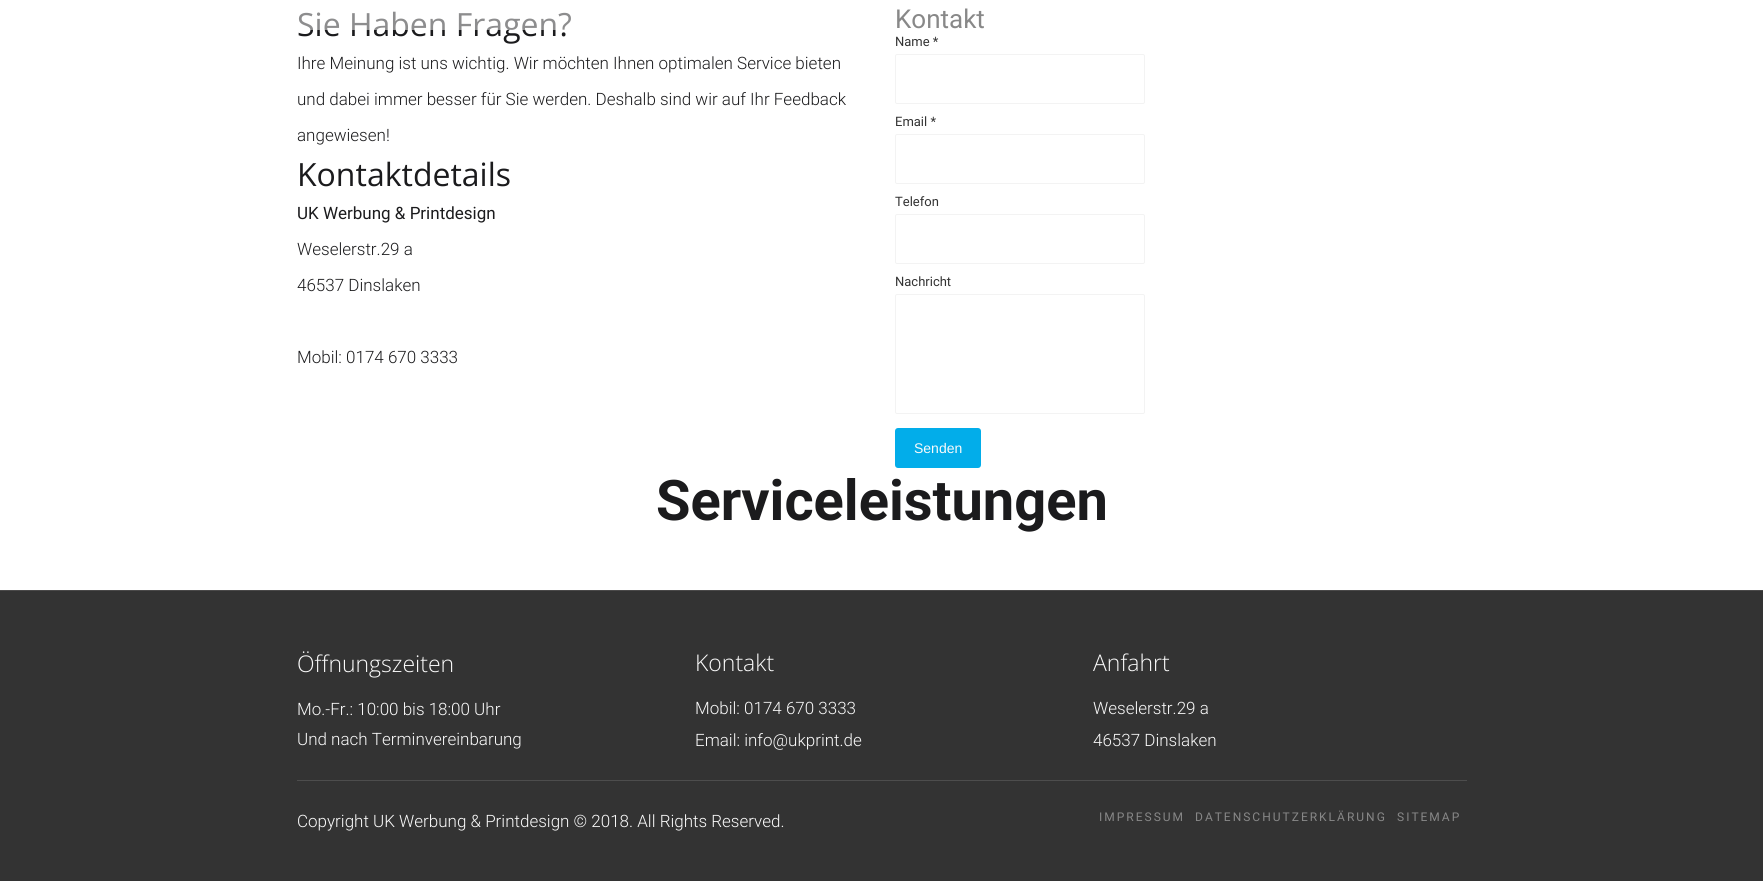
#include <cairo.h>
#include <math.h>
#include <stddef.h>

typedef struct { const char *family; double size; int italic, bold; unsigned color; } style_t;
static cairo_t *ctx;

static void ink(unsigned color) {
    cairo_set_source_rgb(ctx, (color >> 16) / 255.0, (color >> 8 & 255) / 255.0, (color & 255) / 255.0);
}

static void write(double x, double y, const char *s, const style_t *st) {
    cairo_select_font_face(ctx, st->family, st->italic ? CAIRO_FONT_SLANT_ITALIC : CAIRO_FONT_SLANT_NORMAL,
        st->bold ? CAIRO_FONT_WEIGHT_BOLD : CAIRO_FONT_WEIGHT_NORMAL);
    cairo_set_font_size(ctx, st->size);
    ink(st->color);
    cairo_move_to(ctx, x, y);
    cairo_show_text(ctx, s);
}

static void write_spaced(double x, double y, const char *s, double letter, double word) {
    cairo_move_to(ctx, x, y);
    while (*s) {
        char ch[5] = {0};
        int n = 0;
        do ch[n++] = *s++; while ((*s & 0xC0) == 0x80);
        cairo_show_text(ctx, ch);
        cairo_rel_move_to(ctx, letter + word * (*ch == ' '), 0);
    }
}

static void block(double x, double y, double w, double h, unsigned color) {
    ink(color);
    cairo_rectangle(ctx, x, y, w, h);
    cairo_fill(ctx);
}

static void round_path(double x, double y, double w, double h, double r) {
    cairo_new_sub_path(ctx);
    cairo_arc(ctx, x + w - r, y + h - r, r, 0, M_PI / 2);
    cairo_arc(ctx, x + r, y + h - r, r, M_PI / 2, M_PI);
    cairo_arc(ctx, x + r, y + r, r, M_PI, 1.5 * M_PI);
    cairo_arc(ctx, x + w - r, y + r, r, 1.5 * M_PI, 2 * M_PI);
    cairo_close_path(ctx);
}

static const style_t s1 = {"Open Sans", 32, 0, 0, 0x1b1b1d};
static const style_t s2 = {"Roboto Light", 17, 0, 0, 0x1b1b1d};
static const style_t s3 = {"Roboto", 17, 0, 0, 0x1b1b1d};
static const style_t s4 = {"Roboto", 26, 0, 0, 0x111111};
static const style_t s5 = {"Roboto", 13, 0, 0, 0x333333};
static const style_t s6 = {"Liberation Sans", 14, 0, 0, 0xfafafa};
static const style_t s7 = {"Roboto", 56, 0, 1, 0x1b1b1d};
static const style_t s8 = {"Open Sans Light", 23, 0, 0, 0xfafafa};
static const style_t s9 = {"Roboto Light", 17, 0, 0, 0xfafafa};

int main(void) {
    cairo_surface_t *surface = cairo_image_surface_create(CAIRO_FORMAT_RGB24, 1763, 881);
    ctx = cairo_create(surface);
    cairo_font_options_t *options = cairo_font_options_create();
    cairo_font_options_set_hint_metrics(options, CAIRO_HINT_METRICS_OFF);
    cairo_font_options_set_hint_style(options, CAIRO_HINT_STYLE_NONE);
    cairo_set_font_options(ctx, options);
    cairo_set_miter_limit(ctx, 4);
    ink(0xffffff);
    cairo_paint(ctx);
    write(297, 36, "Sie Haben Fragen?", &s1);
    write(297, 69, "Ihre Meinung ist uns wichtig. Wir möchten Ihnen optimalen Service bieten", &s2);
    write(297, 105, "und dabei immer besser für Sie werden. Deshalb sind wir auf Ihr Feedback", &s2);
    write(297, 141, "angewiesen!", &s2);
    write(297, 186, "Kontaktdetails", &s1);
    write(297, 219, "UK Werbung & Printdesign", &s3);
    write(297, 255, "Weselerstr.29 a", &s2);
    write(297, 291, "46537 Dinslaken", &s2);
    write(297, 363, "Mobil: 0174 670 3333", &s2);
    write(895, 28, "Kontakt", &s4);
    write(895, 46, "Name *", &s5);
    round_path(895.5, 54.5, 249, 49, 1.5);
    ink(0xf3f3f3);
    cairo_set_line_width(ctx, 1);
    cairo_stroke(ctx);
    write(895, 126, "Email *", &s5);
    round_path(895.5, 134.5, 249, 49, 1.5);
    ink(0xf3f3f3);
    cairo_stroke(ctx);
    write(895, 206, "Telefon", &s5);
    round_path(895.5, 214.5, 249, 49, 1.5);
    ink(0xf3f3f3);
    cairo_stroke(ctx);
    write(895, 286, "Nachricht", &s5);
    round_path(895.5, 294.5, 249, 119, 1.5);
    ink(0xf3f3f3);
    cairo_stroke(ctx);
    ink(0x02adea);
    round_path(895, 428, 86, 40, 3);
    cairo_fill(ctx);
    write(914, 453, "Senden", &s6);
    write(656, 520, "Serviceleistungen", &s7);
    cairo_set_source_rgba(ctx, 1, 1, 1, 0.5);
    cairo_rectangle(ctx, 298, 8, 686, 22);
    cairo_fill(ctx);
    block(0, 591, 1763, 290, 0x333333);
    block(0, 590, 1763, 1, 0x4a4949);
    write(297, 672, "Öffnungszeiten", &s8);
    write(297, 715, "Mo.-Fr.: 10:00 bis 18:00 Uhr", &s9);
    write(297, 745, "Und nach Terminvereinbarung", &s9);
    write(695, 671, "Kontakt", &s8);
    write(695, 714, "Mobil: 0174 670 3333", &s9);
    write(695, 746, "Email: info@ukprint.de", &s9);
    write(1093, 671, "Anfahrt", &s8);
    write(1093, 714, "Weselerstr.29 a", &s9);
    write(1093, 746, "46537 Dinslaken", &s9);
    block(297, 780, 1170, 1, 0x4d4d4d);
    write(297, 827, "Copyright UK Werbung & Printdesign © 2018. All Rights Reserved.", &s9);
    cairo_select_font_face(ctx, "Roboto", CAIRO_FONT_SLANT_NORMAL, CAIRO_FONT_WEIGHT_NORMAL);
    cairo_set_font_size(ctx, 12);
    ink(0x878787);
    write_spaced(1099, 821, "IMPRESSUM", 2, 0);
    write_spaced(1195, 821, "DATENSCHUTZERKLÄRUNG", 2, 0);
    write_spaced(1397, 821, "SITEMAP", 2, 0);
    cairo_surface_write_to_png(surface, "screenshot.png");
    cairo_font_options_destroy(options);
    cairo_destroy(ctx);
    cairo_surface_destroy(surface);
    return 0;
}
